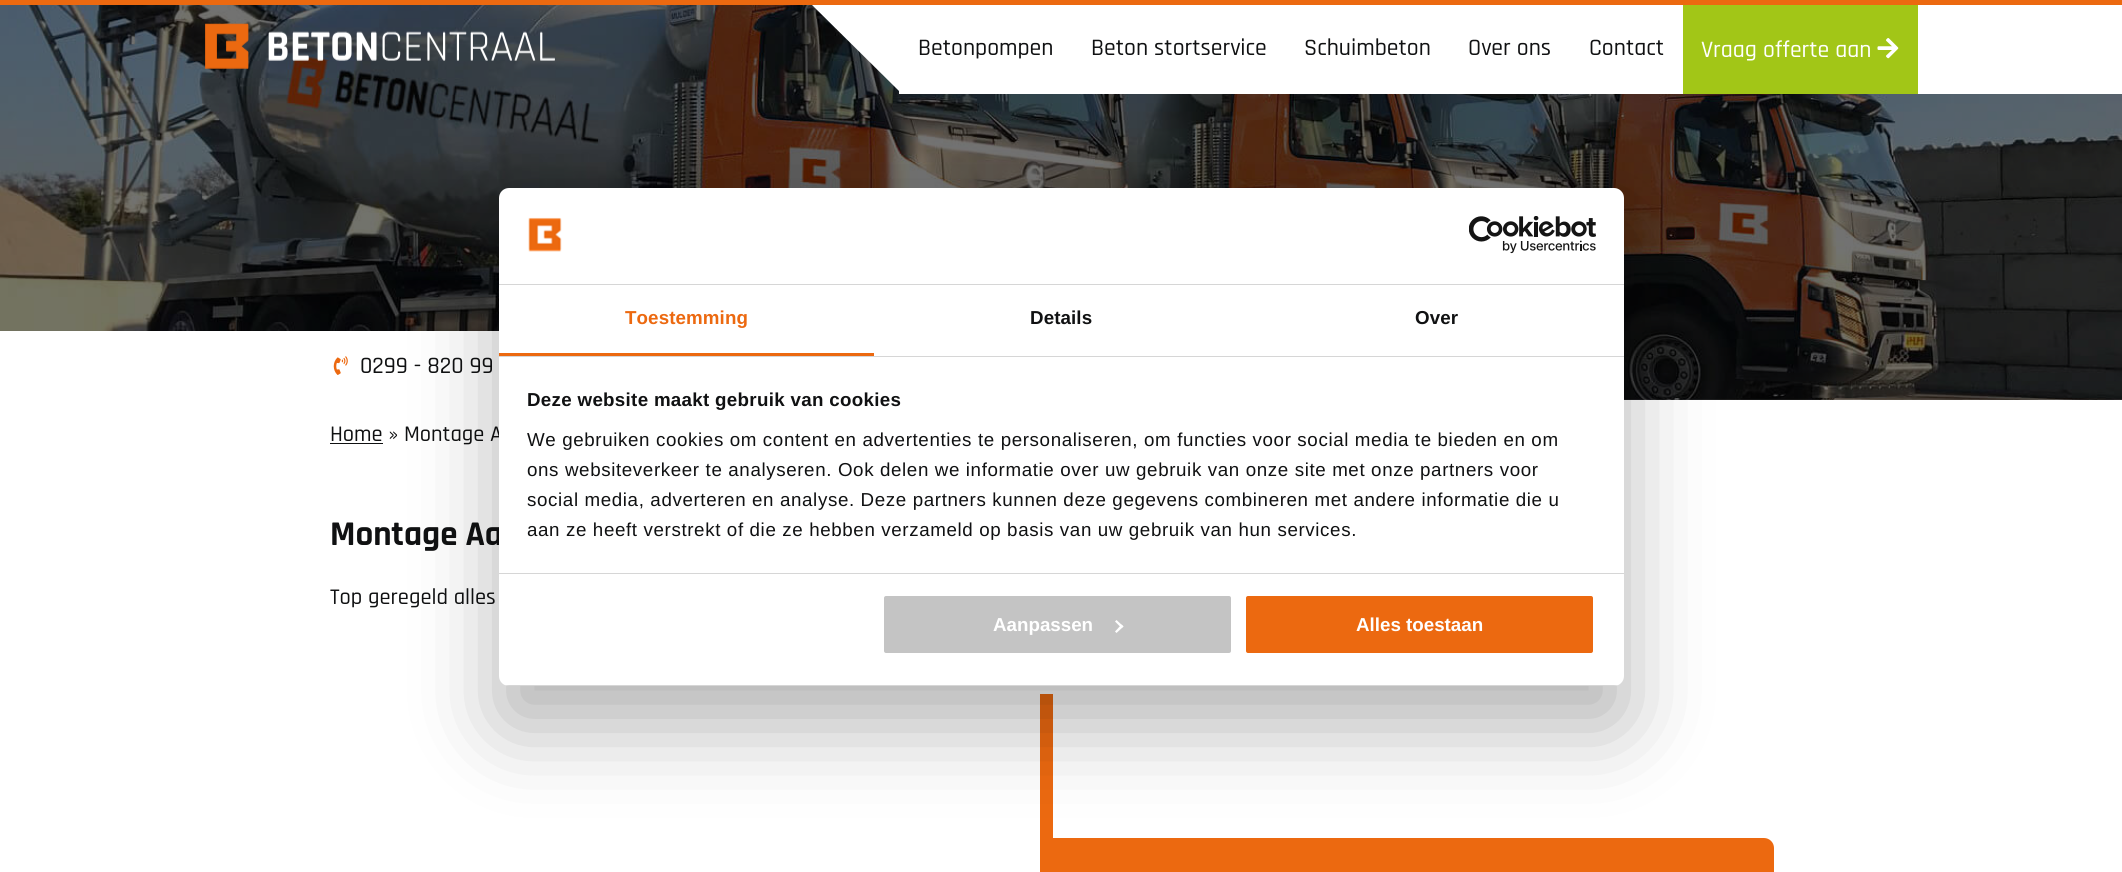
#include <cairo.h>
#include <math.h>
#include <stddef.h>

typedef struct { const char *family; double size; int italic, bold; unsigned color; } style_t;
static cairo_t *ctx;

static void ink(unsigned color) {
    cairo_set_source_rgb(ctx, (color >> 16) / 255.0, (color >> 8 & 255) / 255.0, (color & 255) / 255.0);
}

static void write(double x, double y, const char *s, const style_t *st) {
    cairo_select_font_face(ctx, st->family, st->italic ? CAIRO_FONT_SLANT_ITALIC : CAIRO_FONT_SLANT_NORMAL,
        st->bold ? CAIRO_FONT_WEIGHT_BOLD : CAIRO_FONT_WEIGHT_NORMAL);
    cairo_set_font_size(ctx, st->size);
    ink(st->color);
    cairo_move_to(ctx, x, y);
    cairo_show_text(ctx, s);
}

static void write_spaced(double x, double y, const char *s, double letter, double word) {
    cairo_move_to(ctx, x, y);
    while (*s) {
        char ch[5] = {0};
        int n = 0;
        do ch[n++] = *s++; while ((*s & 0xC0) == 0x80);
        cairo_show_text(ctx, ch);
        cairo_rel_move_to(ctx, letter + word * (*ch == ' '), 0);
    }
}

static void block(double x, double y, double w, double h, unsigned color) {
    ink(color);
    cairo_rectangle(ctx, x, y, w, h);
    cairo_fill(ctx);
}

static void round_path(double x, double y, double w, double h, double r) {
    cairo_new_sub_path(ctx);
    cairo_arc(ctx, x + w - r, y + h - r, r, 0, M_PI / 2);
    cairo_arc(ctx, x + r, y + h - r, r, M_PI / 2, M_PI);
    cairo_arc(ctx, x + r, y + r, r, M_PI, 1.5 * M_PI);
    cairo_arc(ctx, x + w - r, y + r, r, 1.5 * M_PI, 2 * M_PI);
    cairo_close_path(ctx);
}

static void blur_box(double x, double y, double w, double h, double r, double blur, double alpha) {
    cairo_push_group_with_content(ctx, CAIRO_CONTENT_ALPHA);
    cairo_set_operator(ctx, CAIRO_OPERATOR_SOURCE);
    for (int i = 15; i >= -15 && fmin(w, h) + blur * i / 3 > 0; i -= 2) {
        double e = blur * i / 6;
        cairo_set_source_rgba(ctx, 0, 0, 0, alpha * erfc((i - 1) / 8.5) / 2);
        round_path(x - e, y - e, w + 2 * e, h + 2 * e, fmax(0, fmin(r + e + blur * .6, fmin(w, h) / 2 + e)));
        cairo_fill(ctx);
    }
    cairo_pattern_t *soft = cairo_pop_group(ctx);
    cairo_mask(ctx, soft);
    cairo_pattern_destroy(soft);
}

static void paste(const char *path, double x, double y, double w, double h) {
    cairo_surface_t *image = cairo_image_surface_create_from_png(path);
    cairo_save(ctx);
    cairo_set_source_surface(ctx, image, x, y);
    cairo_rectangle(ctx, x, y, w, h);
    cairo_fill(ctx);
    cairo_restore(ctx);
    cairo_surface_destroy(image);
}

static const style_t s1 = {"Rajdhani Medium", 23.75, 0, 0, 0x101112};
static const style_t s2 = {"Rajdhani Medium", 23.75, 0, 0, 0xffffff};
static const style_t s3 = {"Rajdhani Medium", 22.5, 0, 0, 0x101112};
static const style_t s4 = {"Rajdhani", 35, 0, 1, 0x101112};
static const style_t s5 = {"Liberation Sans", 18.75, 0, 1, 0xffffff};

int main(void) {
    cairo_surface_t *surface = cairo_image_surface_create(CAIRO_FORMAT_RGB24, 2122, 872);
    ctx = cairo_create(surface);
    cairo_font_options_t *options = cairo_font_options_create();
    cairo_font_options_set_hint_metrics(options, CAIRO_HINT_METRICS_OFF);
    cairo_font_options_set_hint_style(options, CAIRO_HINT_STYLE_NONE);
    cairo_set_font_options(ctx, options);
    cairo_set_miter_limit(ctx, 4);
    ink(0xffffff);
    cairo_paint(ctx);
    block(0, 0, 2122, 5, 0xec6910);
    paste("pic3.png", 0, 5, 2122, 395);
    paste("pic1.png", 205, 23, 350, 46);
    block(899, 5, 784, 89, 0xffffff);
    cairo_new_path(ctx);
    cairo_move_to(ctx, 899, 5);
    cairo_line_to(ctx, 899, 91);
    cairo_line_to(ctx, 812, 5);
    cairo_close_path(ctx);
    cairo_fill(ctx);
    write(918, 55, "Betonpompen", &s1);
    write(1091, 55, "Beton stortservice", &s1);
    write(1304, 55, "Schuimbeton", &s1);
    write(1468, 55, "Over ons", &s1);
    write(1589, 55, "Contact", &s1);
    block(1683, 5, 235, 89, 0xa2c617);
    write(1701, 57, "Vraag offerte aan", &s2);
    paste("pic2.png", 1877, 38, 22, 21);
    block(1918, 5, 204, 89, 0xffffff);
    block(0, 331, 499, 69, 0xffffff);
    paste("pic4.png", 333, 356, 15, 19);
    write(360, 373, "0299 - 820 99", &s1);
    block(330, 443, 53, 1, 0x101112);
    write(330, 441, "Home » Montage A", &s3);
    write(330, 545, "Montage Aa", &s4);
    write(330, 604, "Top geregeld alles", &s3);
    block(1040, 694, 13, 178, 0xec6910);
    cairo_new_path(ctx);
    cairo_move_to(ctx, 1053, 838);
    cairo_line_to(ctx, 1764, 838);
    cairo_curve_to(ctx, 1769.5, 838, 1774, 842.5, 1774, 848);
    cairo_line_to(ctx, 1774, 872);
    cairo_curve_to(ctx, 1774, 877.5, 1769.5, 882, 1764, 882);
    cairo_line_to(ctx, 1053, 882);
    cairo_close_path(ctx);
    cairo_fill(ctx);
    ink(0x000000);
    blur_box(499, 228, 1125, 498, 10, 42.5, 0.3);
    ink(0xffffff);
    round_path(499, 188, 1125, 498, 10);
    cairo_fill(ctx);
    block(499, 284, 1125, 1, 0xd6d6d6);
    paste("pic5.png", 528, 217, 34, 35);
    paste("pic6.png", 1469, 216, 127, 38);
    block(499, 356, 1125, 1, 0xd6d6d6);
    block(499, 353, 375, 3, 0xec6910);
    cairo_select_font_face(ctx, "Liberation Sans", CAIRO_FONT_SLANT_NORMAL, CAIRO_FONT_WEIGHT_BOLD);
    cairo_set_font_size(ctx, 18.75);
    write_spaced(625, 324, "Toestemming", 0.1, 0);
    ink(0x101112);
    write_spaced(1030, 324, "Details", 0.1, 0);
    write_spaced(1415, 324, "Over", 0.1, 0);
    block(499, 573, 1125, 1, 0xd6d6d6);
    ink(0x101112);
    write_spaced(527, 406, "Deze website maakt gebruik van cookies", 0.3, 0);
    cairo_select_font_face(ctx, "Liberation Sans", CAIRO_FONT_SLANT_NORMAL, CAIRO_FONT_WEIGHT_NORMAL);
    write_spaced(527, 446, "We gebruiken cookies om content en advertenties te personaliseren, om functies voor social media te bieden en om", 0.62, 0);
    write_spaced(527, 476, "ons websiteverkeer te analyseren. Ook delen we informatie over uw gebruik van onze site met onze partners voor", 0.62, 0);
    write_spaced(527, 506, "social media, adverteren en analyse. Deze partners kunnen deze gegevens combineren met andere informatie die u", 0.62, 0);
    write_spaced(527, 536, "aan ze heeft verstrekt of die ze hebben verzameld op basis van uw gebruik van hun services.", 0.62, 0);
    cairo_save(ctx);
    round_path(499, 188, 1125, 498, 10);
    cairo_clip(ctx);
    block(499, 685, 1125, 1, 0xd6d6d6);
    cairo_restore(ctx);
    ink(0xc4c4c4);
    round_path(882.5, 594.5, 350, 60, 3.5);
    cairo_fill_preserve(ctx);
    ink(0xffffff);
    cairo_set_line_width(ctx, 3);
    cairo_stroke(ctx);
    write(993, 631, "Aanpassen", &s5);
    cairo_new_path(ctx);
    cairo_move_to(ctx, 1116.5, 620);
    cairo_line_to(ctx, 1123.5, 626.5);
    cairo_line_to(ctx, 1121.5, 628);
    cairo_line_to(ctx, 1115, 621.5);
    cairo_close_path(ctx);
    cairo_fill(ctx);
    cairo_new_path(ctx);
    cairo_move_to(ctx, 1121.5, 624.5);
    cairo_line_to(ctx, 1123.5, 626.5);
    cairo_line_to(ctx, 1116.5, 633);
    cairo_line_to(ctx, 1115, 631.5);
    cairo_close_path(ctx);
    cairo_fill(ctx);
    ink(0xec6910);
    round_path(1244.5, 594.5, 350, 60, 3.5);
    cairo_fill_preserve(ctx);
    ink(0xffffff);
    cairo_stroke(ctx);
    write(1356, 631, "Alles toestaan", &s5);
    cairo_surface_write_to_png(surface, "screenshot.png");
    cairo_font_options_destroy(options);
    cairo_destroy(ctx);
    cairo_surface_destroy(surface);
    return 0;
}
